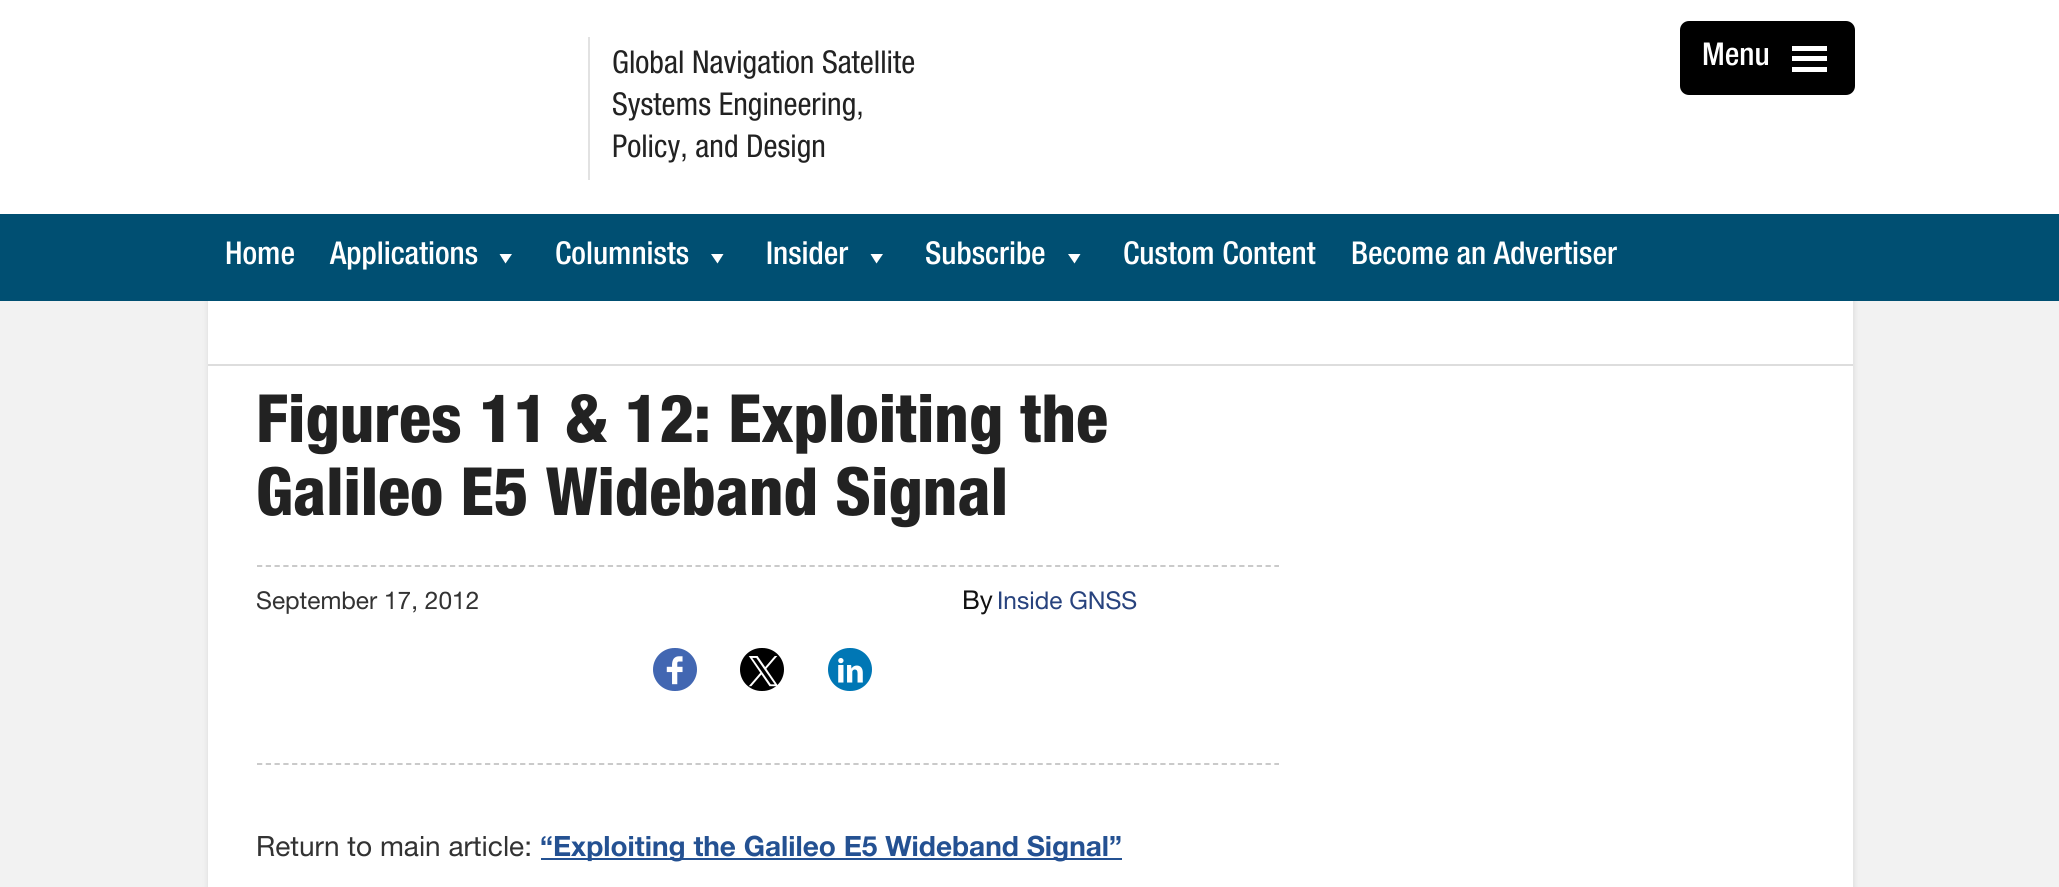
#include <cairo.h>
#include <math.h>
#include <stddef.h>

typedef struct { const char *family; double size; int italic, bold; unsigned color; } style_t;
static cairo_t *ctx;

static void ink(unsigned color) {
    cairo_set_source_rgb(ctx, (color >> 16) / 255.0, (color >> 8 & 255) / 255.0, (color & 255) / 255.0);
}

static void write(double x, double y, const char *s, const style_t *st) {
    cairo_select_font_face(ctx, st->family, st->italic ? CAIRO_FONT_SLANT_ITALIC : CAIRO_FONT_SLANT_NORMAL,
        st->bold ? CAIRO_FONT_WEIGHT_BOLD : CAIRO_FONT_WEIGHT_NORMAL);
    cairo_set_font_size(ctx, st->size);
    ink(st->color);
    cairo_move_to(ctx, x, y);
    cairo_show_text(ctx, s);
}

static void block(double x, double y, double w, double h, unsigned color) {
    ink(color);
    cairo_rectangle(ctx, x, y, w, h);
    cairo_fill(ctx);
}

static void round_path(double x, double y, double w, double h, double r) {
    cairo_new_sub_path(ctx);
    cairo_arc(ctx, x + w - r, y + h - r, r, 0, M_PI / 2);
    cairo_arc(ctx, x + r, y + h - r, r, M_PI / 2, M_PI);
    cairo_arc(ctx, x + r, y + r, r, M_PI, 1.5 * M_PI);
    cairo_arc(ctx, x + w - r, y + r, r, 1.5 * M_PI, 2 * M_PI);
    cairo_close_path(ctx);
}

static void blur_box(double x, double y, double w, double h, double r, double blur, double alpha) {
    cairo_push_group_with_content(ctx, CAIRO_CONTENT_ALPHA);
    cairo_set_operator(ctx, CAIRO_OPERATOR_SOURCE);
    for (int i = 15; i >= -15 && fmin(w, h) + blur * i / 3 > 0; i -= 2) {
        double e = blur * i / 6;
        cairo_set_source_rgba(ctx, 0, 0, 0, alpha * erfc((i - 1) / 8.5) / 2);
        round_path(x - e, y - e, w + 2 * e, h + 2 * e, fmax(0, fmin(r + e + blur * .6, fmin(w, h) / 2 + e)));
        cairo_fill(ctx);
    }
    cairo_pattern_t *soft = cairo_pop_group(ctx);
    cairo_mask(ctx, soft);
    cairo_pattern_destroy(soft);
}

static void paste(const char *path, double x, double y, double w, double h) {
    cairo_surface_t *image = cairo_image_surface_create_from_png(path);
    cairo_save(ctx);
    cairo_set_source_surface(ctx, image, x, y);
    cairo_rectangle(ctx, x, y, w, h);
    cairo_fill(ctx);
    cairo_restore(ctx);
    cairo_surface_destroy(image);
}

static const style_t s1 = {"Helvetica Neue", 31.5, 0, 0, 0x222222};
static const style_t s2 = {"Helvetica Neue Medium", 31.5, 0, 0, 0xffffff};
static const style_t s3 = {"Helvetica Neue", 66.5, 0, 1, 0x222222};
static const style_t s4 = {"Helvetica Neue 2", 24.5, 0, 0, 0x333333};
static const style_t s5 = {"Helvetica Neue 2", 26, 0, 0, 0x111111};
static const style_t s6 = {"Helvetica Neue 2", 24.5, 0, 0, 0x28437e};
static const style_t s7 = {"Helvetica Neue 2", 28, 0, 0, 0x333333};
static const style_t s8 = {"Helvetica Neue 2", 28, 0, 1, 0x245192};

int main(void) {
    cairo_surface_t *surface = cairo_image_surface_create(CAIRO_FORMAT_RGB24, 2059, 887);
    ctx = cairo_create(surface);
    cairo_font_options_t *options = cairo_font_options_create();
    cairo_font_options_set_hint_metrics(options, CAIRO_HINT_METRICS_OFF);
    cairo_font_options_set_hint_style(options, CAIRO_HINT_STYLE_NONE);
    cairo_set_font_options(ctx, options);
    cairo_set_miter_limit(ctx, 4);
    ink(0xf2f2f2);
    cairo_paint(ctx);
    block(0, 0, 2059, 214, 0xffffff);
    block(588, 37, 2, 143, 0xe2e2e2);
    write(612, 73, "Global Navigation Satellite", &s1);
    write(612, 115, "Systems Engineering,", &s1);
    write(612, 157, "Policy, and Design", &s1);
    ink(0x000000);
    round_path(1782, 21, 73, 74, 9);
    cairo_fill(ctx);
    cairo_new_path(ctx);
    cairo_move_to(ctx, 1689, 21);
    cairo_line_to(ctx, 1792, 21);
    cairo_line_to(ctx, 1792, 95);
    cairo_line_to(ctx, 1689, 95);
    cairo_curve_to(ctx, 1684, 95, 1680, 91, 1680, 86);
    cairo_line_to(ctx, 1680, 30);
    cairo_curve_to(ctx, 1680, 25, 1684, 21, 1689, 21);
    cairo_close_path(ctx);
    cairo_fill(ctx);
    write(1702, 65, "Menu", &s2);
    block(1792, 46, 35, 5, 0xffffff);
    block(1792, 56, 35, 5, 0xffffff);
    block(1792, 67, 35, 5, 0xffffff);
    ink(0xe0e0e0);
    blur_box(207, 299, 1648, 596, 0, 2.5, 1);
    block(0, 214, 2059, 87, 0x004f72);
    write(225, 264, "Home", &s2);
    write(330, 264, "Applications", &s2);
    cairo_new_path(ctx);
    cairo_move_to(ctx, 512, 254);
    cairo_line_to(ctx, 505.5, 263.5);
    cairo_line_to(ctx, 499.5, 254);
    cairo_close_path(ctx);
    cairo_fill(ctx);
    write(555, 264, "Columnists", &s2);
    cairo_new_path(ctx);
    cairo_move_to(ctx, 723.5, 254);
    cairo_line_to(ctx, 717.5, 263.5);
    cairo_line_to(ctx, 711, 254);
    cairo_close_path(ctx);
    cairo_fill(ctx);
    write(766, 264, "Insider", &s2);
    cairo_new_path(ctx);
    cairo_move_to(ctx, 883, 254);
    cairo_line_to(ctx, 876.5, 263.5);
    cairo_line_to(ctx, 870.5, 254);
    cairo_close_path(ctx);
    cairo_fill(ctx);
    write(925, 264, "Subscribe", &s2);
    cairo_new_path(ctx);
    cairo_move_to(ctx, 1080.5, 254);
    cairo_line_to(ctx, 1074.5, 263.5);
    cairo_line_to(ctx, 1068, 254);
    cairo_close_path(ctx);
    cairo_fill(ctx);
    write(1123, 264, "Custom Content", &s2);
    write(1351, 264, "Become an Advertiser", &s2);
    block(208, 301, 1645, 586, 0xffffff);
    block(208, 364, 1645, 2, 0xdddddd);
    write(256, 442, "Figures 11 & 12: Exploiting the", &s3);
    write(256, 515, "Galileo E5 Wideband Signal", &s3);
    cairo_new_path(ctx);
    cairo_move_to(ctx, 257, 566);
    cairo_line_to(ctx, 1279, 566);
    ink(0xc4c4c4);
    cairo_set_line_width(ctx, 1.8);
    cairo_set_dash(ctx, (double[]){5.25, 3.52}, 2, 0);
    cairo_stroke(ctx);
    cairo_new_path(ctx);
    cairo_move_to(ctx, 257, 764);
    cairo_line_to(ctx, 1279, 764);
    cairo_stroke(ctx);
    write(256, 609, "September 17, 2012", &s4);
    write(962, 609, "By", &s5);
    write(997, 609, "Inside GNSS", &s6);
    ink(0x4267b2);
    round_path(653, 648, 44, 43, 21.5);
    cairo_fill(ctx);
    paste("pic1.png", 666, 656, 17, 29);
    ink(0x000000);
    round_path(740, 648, 44, 43, 21.5);
    cairo_fill(ctx);
    paste("pic2.png", 748, 656, 30, 31);
    ink(0x0077b5);
    round_path(828, 648, 44, 43, 21.5);
    cairo_fill(ctx);
    paste("pic3.png", 838, 658, 25, 25);
    write(256, 856, "Return to main article:", &s7);
    block(541, 858, 581, 2, 0x245192);
    write(540, 856, "“Exploiting the Galileo E5 Wideband Signal”", &s8);
    cairo_surface_write_to_png(surface, "screenshot.png");
    cairo_font_options_destroy(options);
    cairo_destroy(ctx);
    cairo_surface_destroy(surface);
    return 0;
}
